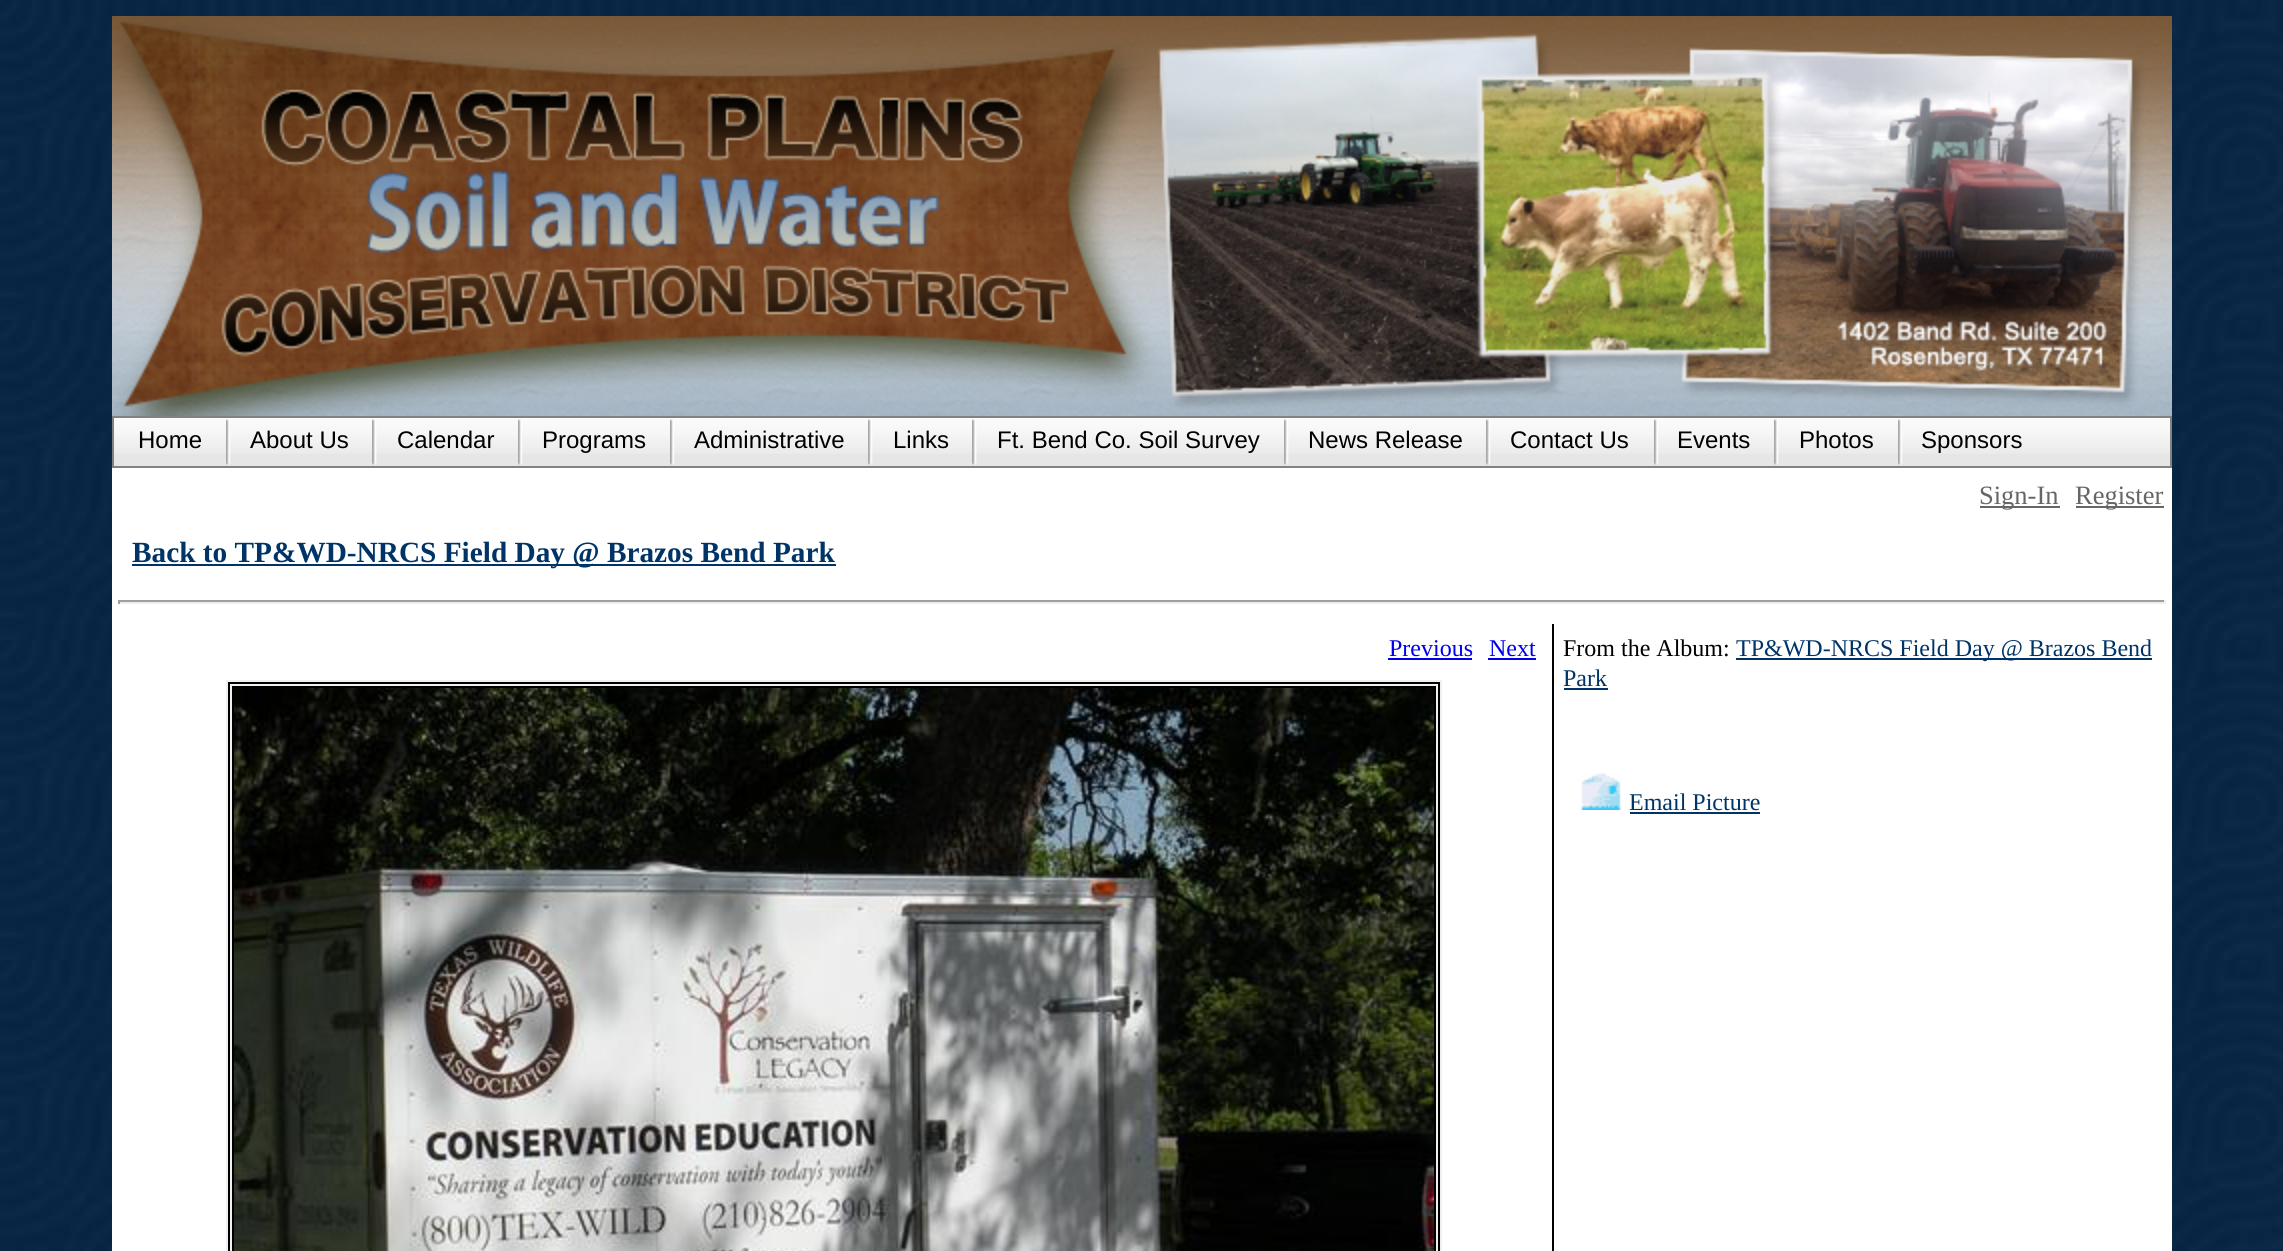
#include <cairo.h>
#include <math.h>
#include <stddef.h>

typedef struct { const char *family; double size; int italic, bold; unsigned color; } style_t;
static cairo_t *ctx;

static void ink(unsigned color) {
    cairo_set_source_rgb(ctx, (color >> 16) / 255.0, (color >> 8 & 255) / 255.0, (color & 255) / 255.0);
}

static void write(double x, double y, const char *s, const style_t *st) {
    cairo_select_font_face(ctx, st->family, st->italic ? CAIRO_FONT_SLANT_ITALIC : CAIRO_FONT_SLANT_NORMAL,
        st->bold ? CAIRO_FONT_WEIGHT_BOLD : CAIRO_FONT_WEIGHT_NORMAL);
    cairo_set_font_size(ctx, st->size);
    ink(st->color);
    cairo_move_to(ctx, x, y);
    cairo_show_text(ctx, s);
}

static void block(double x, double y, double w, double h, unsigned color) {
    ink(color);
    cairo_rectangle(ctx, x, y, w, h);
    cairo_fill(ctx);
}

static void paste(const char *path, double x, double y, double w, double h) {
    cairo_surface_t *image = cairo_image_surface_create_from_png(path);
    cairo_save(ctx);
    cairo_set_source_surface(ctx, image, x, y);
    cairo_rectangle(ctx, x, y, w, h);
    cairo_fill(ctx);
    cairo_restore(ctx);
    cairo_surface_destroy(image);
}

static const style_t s1 = {"Liberation Sans", 24, 0, 0, 0x000000};
static const style_t s2 = {"Liberation Serif", 26.5, 0, 0, 0x666666};
static const style_t s3 = {"Liberation Serif", 29.3, 0, 1, 0x003366};
static const style_t s4 = {"Liberation Serif", 24, 0, 0, 0x0000ee};
static const style_t s5 = {"Liberation Serif", 24, 0, 0, 0x000000};
static const style_t s6 = {"Liberation Serif", 24, 0, 0, 0x003366};

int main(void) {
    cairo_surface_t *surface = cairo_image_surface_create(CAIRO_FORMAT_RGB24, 2283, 1251);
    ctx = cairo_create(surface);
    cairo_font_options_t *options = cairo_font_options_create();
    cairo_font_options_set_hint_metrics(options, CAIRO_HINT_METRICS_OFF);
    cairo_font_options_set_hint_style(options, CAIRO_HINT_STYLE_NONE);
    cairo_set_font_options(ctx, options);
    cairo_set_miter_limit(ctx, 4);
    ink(0xffffff);
    cairo_paint(ctx);
    paste("pic1.png", 0, 0, 2283, 1251);
    block(112, 468, 2060, 783, 0xffffff);
    paste("pic2.png", 112, 16, 2060, 400);
    block(114, 454, 2056, 12, 0xe6e6e6);
    paste("pic3.png", 114, 418, 2056, 36);
    cairo_rectangle(ctx, 113, 417, 2058, 50);
    ink(0x828282);
    cairo_stroke(ctx);
    write(138, 448, "Home", &s1);
    paste("pic4.png", 226, 419, 5, 46);
    write(250, 448, "About Us", &s1);
    paste("pic5.png", 372, 419, 5, 46);
    write(397, 448, "Calendar", &s1);
    paste("pic4.png", 518, 419, 5, 46);
    write(542, 448, "Programs", &s1);
    paste("pic4.png", 670, 419, 5, 46);
    write(694, 448, "Administrative", &s1);
    paste("pic4.png", 868, 419, 5, 46);
    write(893, 448, "Links", &s1);
    paste("pic5.png", 972, 419, 5, 46);
    write(997, 448, "Ft. Bend Co. Soil Survey", &s1);
    paste("pic4.png", 1284, 419, 5, 46);
    write(1308, 448, "News Release", &s1);
    paste("pic5.png", 1486, 419, 5, 46);
    write(1510, 448, "Contact Us", &s1);
    paste("pic4.png", 1654, 419, 5, 46);
    write(1677, 448, "Events", &s1);
    paste("pic5.png", 1774, 419, 5, 46);
    write(1799, 448, "Photos", &s1);
    paste("pic4.png", 1898, 419, 5, 46);
    write(1921, 448, "Sponsors", &s1);
    block(1980, 506, 80, 2, 0x666666);
    write(1979, 504, "Sign-In", &s2);
    block(2076, 506, 88, 2, 0x666666);
    write(2075, 504, "Register", &s2);
    block(132, 564, 704, 2, 0x003366);
    write(132, 562, "Back to TP&WD-NRCS Field Day @ Brazos Bend Park", &s3);
    block(118, 600, 2048, 2, 0x9f9f9f);
    block(2164, 600, 2, 4, 0xeeeeee);
    block(118, 602, 2048, 2, 0xeeeeee);
    block(118, 600, 2, 4, 0x9f9f9f);
    block(226, 680, 1216, 571, 0xf1f0f0);
    cairo_rectangle(ctx, 229, 683, 1210, 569);
    ink(0x000000);
    cairo_stroke(ctx);
    cairo_rectangle(ctx, 233, 687, 1202, 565);
    cairo_stroke(ctx);
    paste("pic6.png", 234, 688, 1200, 563);
    write(1389, 656, "Previous", &s4);
    block(1388, 658, 84, 2, 0x0000ee);
    write(1489, 656, "Next", &s4);
    block(1488, 658, 48, 2, 0x0000ee);
    block(1552, 624, 2, 627, 0x000000);
    write(1563, 656, "From the Album:", &s5);
    block(1736, 658, 416, 2, 0x003366);
    write(1736, 656, "TP&WD-NRCS Field Day @ Brazos Bend", &s6);
    write(1563, 686, "Park", &s6);
    block(1564, 688, 44, 2, 0x003366);
    paste("pic7.png", 1581, 773, 40, 37);
    write(1629, 810, "Email Picture", &s6);
    block(1630, 812, 130, 2, 0x003366);
    cairo_surface_write_to_png(surface, "screenshot.png");
    cairo_font_options_destroy(options);
    cairo_destroy(ctx);
    cairo_surface_destroy(surface);
    return 0;
}
